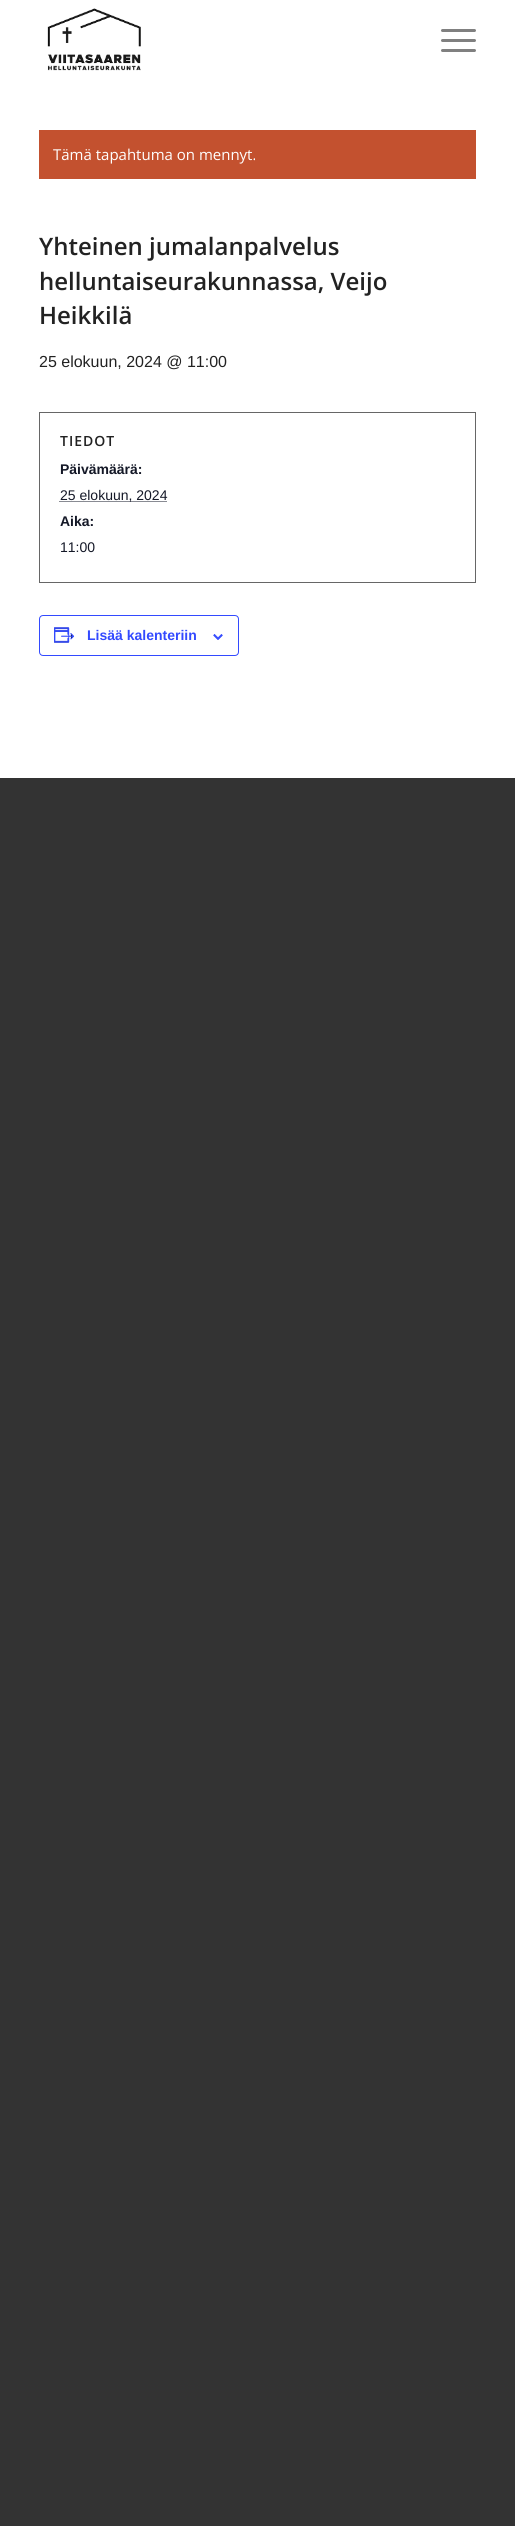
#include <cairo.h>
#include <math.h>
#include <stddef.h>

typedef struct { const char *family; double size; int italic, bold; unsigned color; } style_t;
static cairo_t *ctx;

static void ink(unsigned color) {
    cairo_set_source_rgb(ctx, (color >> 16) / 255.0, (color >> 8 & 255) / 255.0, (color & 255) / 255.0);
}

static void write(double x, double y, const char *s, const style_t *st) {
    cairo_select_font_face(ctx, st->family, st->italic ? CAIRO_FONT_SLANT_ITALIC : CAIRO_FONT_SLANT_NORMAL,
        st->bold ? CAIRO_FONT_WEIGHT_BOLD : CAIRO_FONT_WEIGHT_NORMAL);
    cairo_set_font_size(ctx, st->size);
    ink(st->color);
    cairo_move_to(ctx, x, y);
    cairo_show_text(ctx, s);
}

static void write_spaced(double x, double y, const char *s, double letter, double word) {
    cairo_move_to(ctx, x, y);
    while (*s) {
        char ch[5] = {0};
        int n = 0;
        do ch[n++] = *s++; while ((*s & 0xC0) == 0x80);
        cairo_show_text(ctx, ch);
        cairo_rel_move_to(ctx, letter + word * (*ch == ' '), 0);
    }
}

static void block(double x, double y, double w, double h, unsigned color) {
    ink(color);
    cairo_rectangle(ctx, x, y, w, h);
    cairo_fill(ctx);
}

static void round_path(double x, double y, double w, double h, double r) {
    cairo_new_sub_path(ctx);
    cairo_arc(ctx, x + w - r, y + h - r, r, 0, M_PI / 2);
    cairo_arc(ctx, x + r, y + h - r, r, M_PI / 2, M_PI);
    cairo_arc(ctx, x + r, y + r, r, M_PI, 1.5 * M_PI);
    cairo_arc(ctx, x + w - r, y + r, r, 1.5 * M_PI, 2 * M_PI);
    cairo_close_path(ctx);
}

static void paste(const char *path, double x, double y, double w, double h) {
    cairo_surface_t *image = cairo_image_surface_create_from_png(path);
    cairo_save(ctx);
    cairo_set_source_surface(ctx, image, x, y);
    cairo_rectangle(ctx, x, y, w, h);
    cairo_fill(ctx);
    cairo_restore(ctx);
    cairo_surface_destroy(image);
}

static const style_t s1 = {"Open Sans", 15, 0, 0, 0xffffff};
static const style_t s2 = {"Open Sans SemiBold", 24, 0, 0, 0x222222};
static const style_t s3 = {"Liberation Sans", 16, 0, 0, 0x222222};
static const style_t s4 = {"Liberation Sans", 14, 0, 1, 0x141827};
static const style_t s5 = {"Liberation Sans", 14, 0, 0, 0x141827};
static const style_t s6 = {"Liberation Sans", 14, 0, 1, 0x334aff};

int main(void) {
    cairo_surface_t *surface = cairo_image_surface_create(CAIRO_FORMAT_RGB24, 515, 2526);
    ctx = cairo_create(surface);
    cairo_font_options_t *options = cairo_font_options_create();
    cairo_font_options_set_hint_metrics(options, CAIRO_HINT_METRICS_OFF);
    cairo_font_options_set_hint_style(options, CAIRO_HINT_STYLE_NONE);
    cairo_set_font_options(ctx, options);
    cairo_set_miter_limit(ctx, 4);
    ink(0x333333);
    cairo_paint(ctx);
    block(0, 0, 515, 778, 0xffffff);
    paste("pic1.png", 47, 8, 94, 63);
    ink(0x808080);
    round_path(441, 39, 35, 3, 1.5);
    cairo_fill(ctx);
    round_path(441, 29, 35, 3, 1.5);
    cairo_fill(ctx);
    round_path(441, 49, 35, 3, 1.5);
    cairo_fill(ctx);
    block(39, 130, 437, 49, 0xc3512f);
    write(53, 160, "Tämä tapahtuma on mennyt.", &s1);
    write(39, 255, "Yhteinen jumalanpalvelus", &s2);
    write(39, 290, "helluntaiseurakunnassa, Veijo", &s2);
    write(39, 324, "Heikkilä", &s2);
    write(39, 367, "25 elokuun, 2024 @ 11:00", &s3);
    cairo_rectangle(ctx, 39.5, 412.5, 436, 170);
    ink(0x666666);
    cairo_set_line_width(ctx, 1);
    cairo_stroke(ctx);
    cairo_select_font_face(ctx, "Open Sans SemiBold", CAIRO_FONT_SLANT_NORMAL, CAIRO_FONT_WEIGHT_NORMAL);
    cairo_set_font_size(ctx, 14);
    ink(0x222222);
    write_spaced(60, 446, "TIEDOT", 1, 0);
    write(60, 474, "Päivämäärä:", &s4);
    cairo_new_path(ctx);
    cairo_move_to(ctx, 59.5, 501.5);
    cairo_line_to(ctx, 167, 501.5);
    cairo_set_dash(ctx, (double[]){1, 1}, 2, 0);
    cairo_stroke(ctx);
    write(60, 500, "25 elokuun, 2024", &s5);
    write(60, 526, "Aika:", &s4);
    write(60, 552, "11:00", &s5);
    round_path(39.5, 615.5, 199, 40, 3.5);
    ink(0x334aff);
    cairo_set_dash(ctx, NULL, 0, 0);
    cairo_stroke(ctx);
    paste("pic2.png", 54, 627, 21, 16);
    write(87, 640, "Lisää kalenteriin", &s6);
    paste("pic3.png", 213, 634, 10, 6);
    cairo_surface_write_to_png(surface, "screenshot.png");
    cairo_font_options_destroy(options);
    cairo_destroy(ctx);
    cairo_surface_destroy(surface);
    return 0;
}
